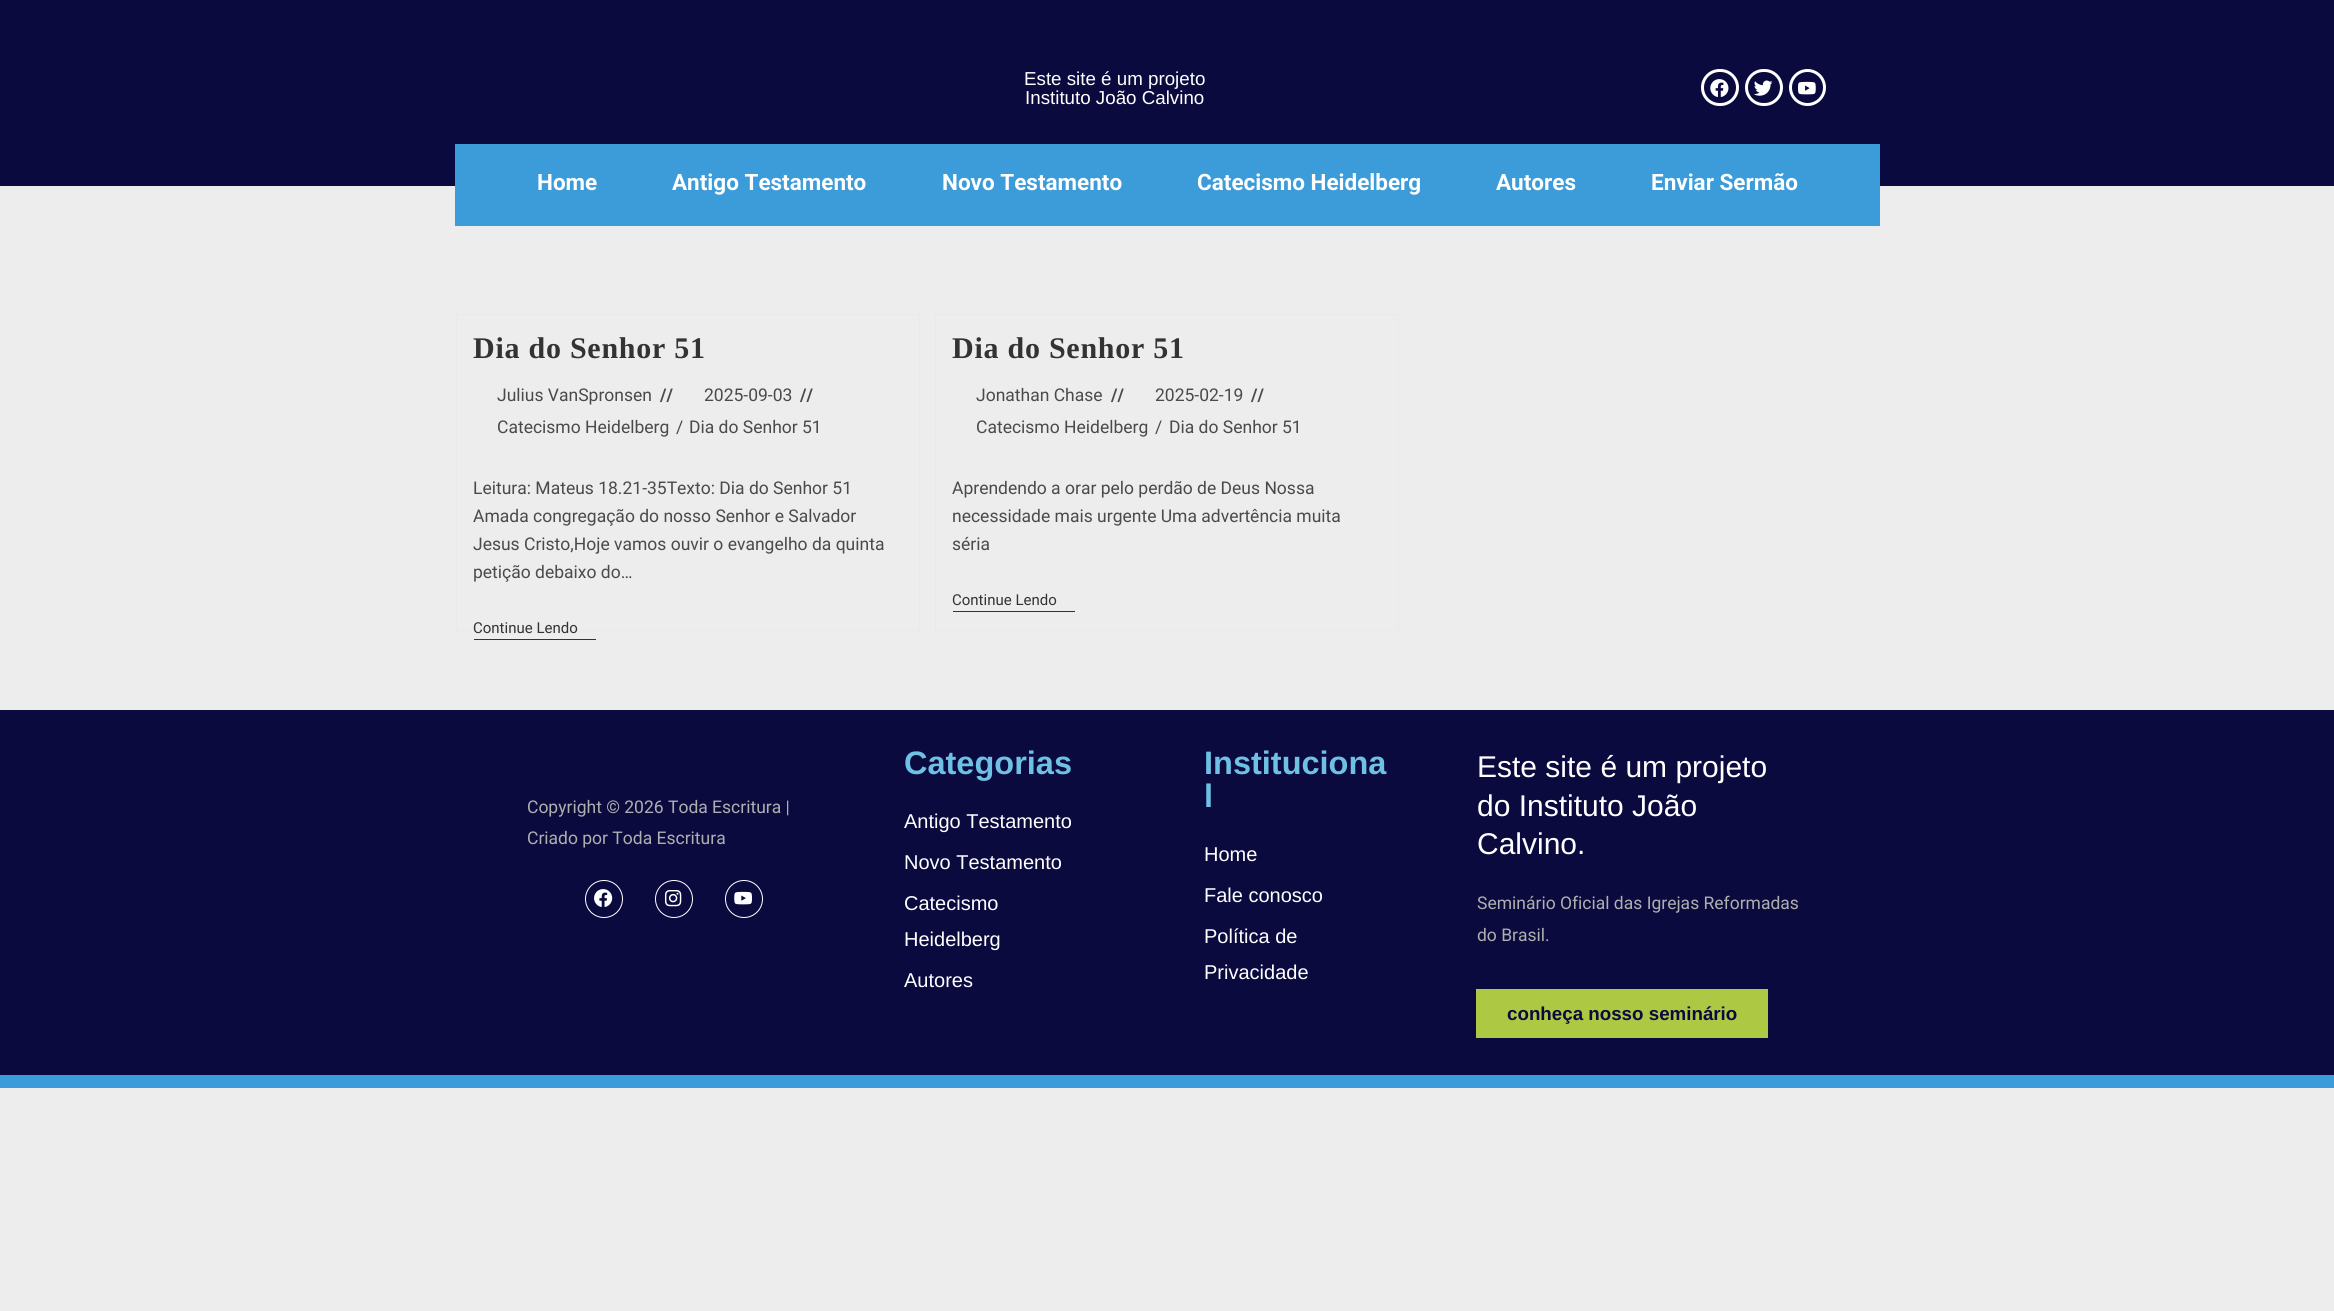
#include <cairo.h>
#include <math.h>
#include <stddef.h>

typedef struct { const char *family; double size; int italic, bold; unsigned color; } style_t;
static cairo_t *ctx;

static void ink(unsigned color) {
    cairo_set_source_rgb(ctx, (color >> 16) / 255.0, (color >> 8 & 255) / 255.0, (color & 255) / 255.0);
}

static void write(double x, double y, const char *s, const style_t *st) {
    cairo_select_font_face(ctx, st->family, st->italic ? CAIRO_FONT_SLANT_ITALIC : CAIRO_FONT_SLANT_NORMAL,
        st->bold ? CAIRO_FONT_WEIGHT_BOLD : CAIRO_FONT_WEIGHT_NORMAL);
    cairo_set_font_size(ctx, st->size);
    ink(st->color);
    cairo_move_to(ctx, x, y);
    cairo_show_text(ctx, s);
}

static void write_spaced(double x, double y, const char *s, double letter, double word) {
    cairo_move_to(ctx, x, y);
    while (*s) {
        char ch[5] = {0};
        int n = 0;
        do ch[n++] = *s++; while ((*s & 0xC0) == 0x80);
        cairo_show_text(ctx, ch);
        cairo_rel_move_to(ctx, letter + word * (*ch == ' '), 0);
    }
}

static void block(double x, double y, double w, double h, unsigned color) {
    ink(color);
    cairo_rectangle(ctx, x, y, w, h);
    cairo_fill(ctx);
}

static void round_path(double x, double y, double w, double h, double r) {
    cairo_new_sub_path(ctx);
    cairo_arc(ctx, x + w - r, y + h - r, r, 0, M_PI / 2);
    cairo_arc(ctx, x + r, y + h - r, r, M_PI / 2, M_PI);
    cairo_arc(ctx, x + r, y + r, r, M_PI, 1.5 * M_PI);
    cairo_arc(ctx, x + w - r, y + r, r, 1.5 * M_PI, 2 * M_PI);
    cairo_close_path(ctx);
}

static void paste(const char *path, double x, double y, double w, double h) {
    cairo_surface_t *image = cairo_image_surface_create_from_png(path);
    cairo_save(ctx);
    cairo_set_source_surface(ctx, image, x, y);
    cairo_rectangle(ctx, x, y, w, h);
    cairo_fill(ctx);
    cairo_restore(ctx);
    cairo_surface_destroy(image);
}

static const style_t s1 = {"Liberation Sans", 18.75, 0, 0, 0xffffff};
static const style_t s2 = {"Roboto", 22.5, 0, 1, 0xffffff};
static const style_t s3 = {"Roboto", 17.5, 0, 0, 0x4a4a4a};
static const style_t s4 = {"Roboto", 17.5, 0, 1, 0x4a4a4a};
static const style_t s5 = {"Roboto", 15, 0, 0, 0x333333};
static const style_t s6 = {"Roboto", 17.5, 0, 0, 0xafafaf};
static const style_t s7 = {"Liberation Sans", 32.5, 0, 1, 0x6ec1e4};
static const style_t s8 = {"Liberation Sans", 20, 0, 0, 0xffffff};
static const style_t s9 = {"Liberation Sans", 30, 0, 0, 0xffffff};
static const style_t s10 = {"Liberation Sans", 18.75, 0, 1, 0x0a0a3f};

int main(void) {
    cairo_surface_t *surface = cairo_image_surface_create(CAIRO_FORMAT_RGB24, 2334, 1311);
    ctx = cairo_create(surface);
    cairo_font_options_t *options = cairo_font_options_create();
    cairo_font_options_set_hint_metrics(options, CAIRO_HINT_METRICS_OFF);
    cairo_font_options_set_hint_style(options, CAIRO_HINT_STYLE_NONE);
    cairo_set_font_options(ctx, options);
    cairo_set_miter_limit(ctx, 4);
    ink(0xededed);
    cairo_paint(ctx);
    block(0, 0, 2334, 186, 0x0a0a3f);
    write(1024, 85, "Este site é um projeto", &s1);
    write(1025, 104, "Instituto João Calvino", &s1);
    round_path(1702.5, 70.5, 35, 34, 17);
    cairo_set_line_width(ctx, 3);
    cairo_stroke(ctx);
    paste("pic1.png", 1710, 79, 19, 18);
    round_path(1746.5, 70.5, 35, 34, 17);
    cairo_stroke(ctx);
    paste("pic2.png", 1754, 80, 19, 16);
    cairo_arc(ctx, 1807.5, 87.5, 17, 0, 2 * M_PI);
    cairo_stroke(ctx);
    paste("pic3.png", 1798, 81, 18, 14);
    block(455, 144, 1425, 82, 0x3c9cd9);
    write(537, 190, "Home", &s2);
    write(672, 190, "Antigo Testamento", &s2);
    write(942, 190, "Novo Testamento", &s2);
    write(1197, 190, "Catecismo Heidelberg", &s2);
    write(1496, 190, "Autores", &s2);
    write(1651, 190, "Enviar Sermão", &s2);
    cairo_rectangle(ctx, 456.5, 314.5, 463, 316);
    ink(0xe9e9e9);
    cairo_set_line_width(ctx, 1);
    cairo_stroke(ctx);
    cairo_select_font_face(ctx, "Liberation Serif", CAIRO_FONT_SLANT_NORMAL, CAIRO_FONT_WEIGHT_BOLD);
    cairo_set_font_size(ctx, 30);
    ink(0x333333);
    write_spaced(473, 358, "Dia do Senhor 51", 0.75, 0);
    write(497, 401, "Julius VanSpronsen", &s3);
    write(660, 401, "//", &s4);
    write(704, 401, "2025-09-03", &s3);
    write(800, 401, "//", &s4);
    write(497, 433, "Catecismo Heidelberg", &s3);
    write(676, 433, "/", &s3);
    write(689, 433, "Dia do Senhor 51", &s3);
    write(473, 494, "Leitura: Mateus 18.21-35Texto: Dia do Senhor 51", &s3);
    write(473, 522, "Amada congregação do nosso Senhor e Salvador", &s3);
    write(473, 550, "Jesus Cristo,Hoje vamos ouvir o evangelho da quinta", &s3);
    write(473, 578, "petição debaixo do…", &s3);
    block(474, 639, 122, 1, 0x333333);
    write(473, 633, "Continue Lendo", &s5);
    cairo_rectangle(ctx, 935.5, 314.5, 463, 316);
    ink(0xe9e9e9);
    cairo_stroke(ctx);
    cairo_select_font_face(ctx, "Liberation Serif", CAIRO_FONT_SLANT_NORMAL, CAIRO_FONT_WEIGHT_BOLD);
    cairo_set_font_size(ctx, 30);
    ink(0x333333);
    write_spaced(952, 358, "Dia do Senhor 51", 0.75, 0);
    write(976, 401, "Jonathan Chase", &s3);
    write(1111, 401, "//", &s4);
    write(1155, 401, "2025-02-19", &s3);
    write(1251, 401, "//", &s4);
    write(976, 433, "Catecismo Heidelberg", &s3);
    write(1155, 433, "/", &s3);
    write(1169, 433, "Dia do Senhor 51", &s3);
    write(952, 494, "Aprendendo a orar pelo perdão de Deus Nossa", &s3);
    write(952, 522, "necessidade mais urgente Uma advertência muita", &s3);
    write(952, 550, "séria", &s3);
    block(953, 611, 122, 1, 0x333333);
    write(952, 605, "Continue Lendo", &s5);
    block(0, 710, 2334, 365, 0x0a0a3f);
    block(0, 1075, 2334, 13, 0x3c9cd9);
    write(527, 813, "Copyright © 2026 Toda Escritura |", &s6);
    write(527, 844, "Criado por Toda Escritura", &s6);
    cairo_new_path(ctx);
    cairo_arc(ctx, 604, 899, 18.5, 0, 2 * M_PI);
    ink(0xffffff);
    cairo_stroke(ctx);
    paste("pic4.png", 594, 889, 19, 18);
    cairo_arc(ctx, 674, 899, 18.5, 0, 2 * M_PI);
    cairo_stroke(ctx);
    paste("pic5.png", 664, 890, 18, 17);
    cairo_arc(ctx, 744, 899, 18.5, 0, 2 * M_PI);
    cairo_stroke(ctx);
    paste("pic6.png", 734, 891, 18, 14);
    write(904, 774, "Categorias", &s7);
    write(904, 828, "Antigo Testamento", &s8);
    write(904, 869, "Novo Testamento", &s8);
    write(904, 910, "Catecismo", &s8);
    write(904, 946, "Heidelberg", &s8);
    write(904, 987, "Autores", &s8);
    write(1204, 774, "Instituciona", &s7);
    write(1204, 807, "l", &s7);
    write(1204, 861, "Home", &s8);
    write(1204, 902, "Fale conosco", &s8);
    write(1204, 943, "Política de", &s8);
    write(1204, 979, "Privacidade", &s8);
    write(1477, 777, "Este site é um projeto", &s9);
    write(1477, 816, "do Instituto João", &s9);
    write(1477, 854, "Calvino.", &s9);
    write(1477, 909, "Seminário Oficial das Igrejas Reformadas", &s6);
    write(1477, 941, "do Brasil.", &s6);
    block(1476, 989, 292, 49, 0xadc843);
    write(1507, 1020, "conheça nosso seminário", &s10);
    cairo_surface_write_to_png(surface, "screenshot.png");
    cairo_font_options_destroy(options);
    cairo_destroy(ctx);
    cairo_surface_destroy(surface);
    return 0;
}
